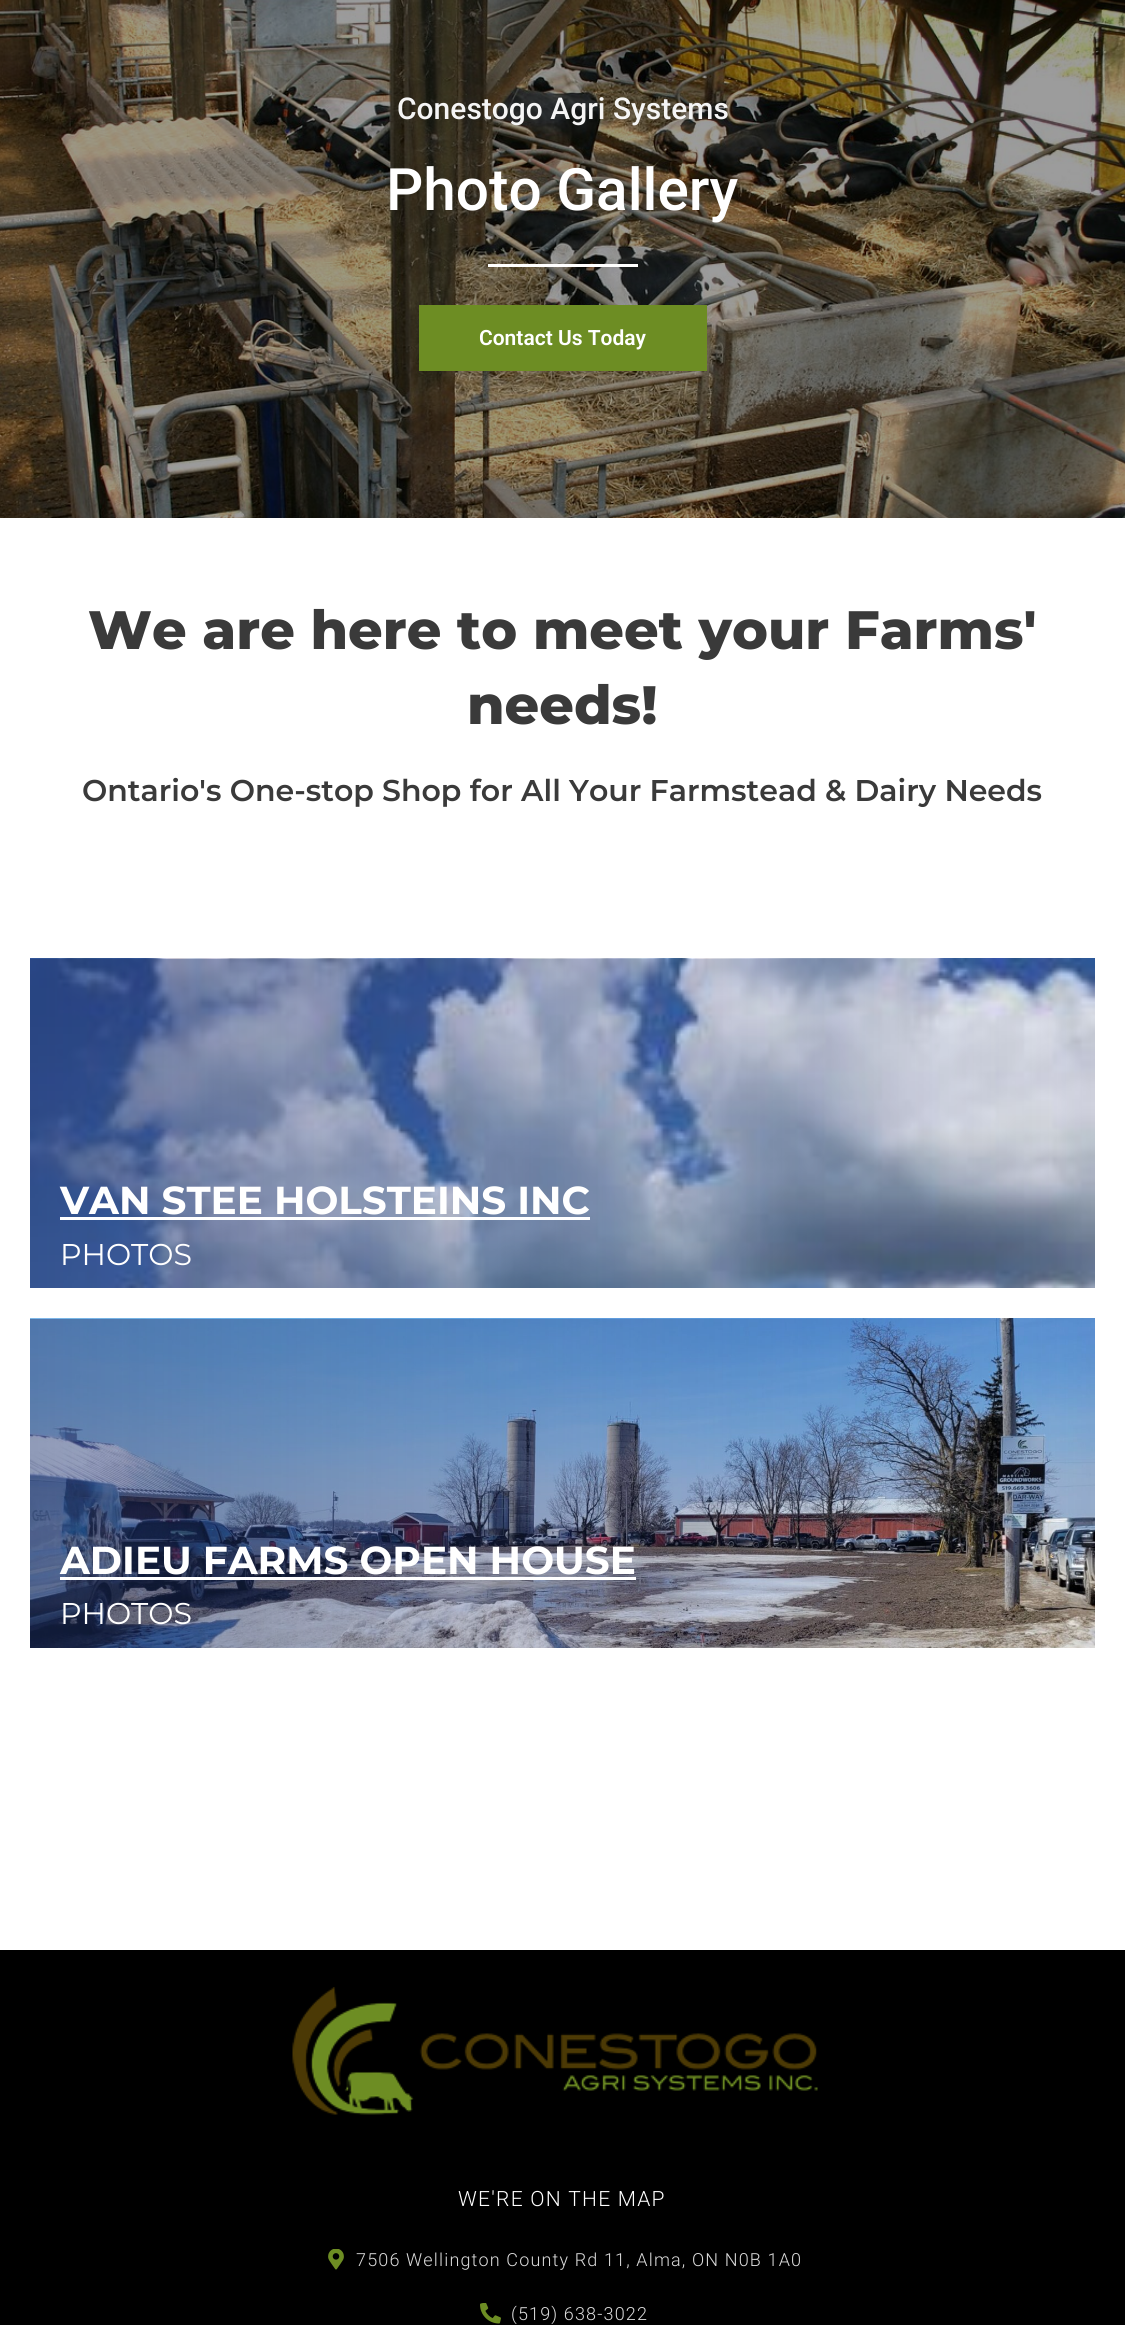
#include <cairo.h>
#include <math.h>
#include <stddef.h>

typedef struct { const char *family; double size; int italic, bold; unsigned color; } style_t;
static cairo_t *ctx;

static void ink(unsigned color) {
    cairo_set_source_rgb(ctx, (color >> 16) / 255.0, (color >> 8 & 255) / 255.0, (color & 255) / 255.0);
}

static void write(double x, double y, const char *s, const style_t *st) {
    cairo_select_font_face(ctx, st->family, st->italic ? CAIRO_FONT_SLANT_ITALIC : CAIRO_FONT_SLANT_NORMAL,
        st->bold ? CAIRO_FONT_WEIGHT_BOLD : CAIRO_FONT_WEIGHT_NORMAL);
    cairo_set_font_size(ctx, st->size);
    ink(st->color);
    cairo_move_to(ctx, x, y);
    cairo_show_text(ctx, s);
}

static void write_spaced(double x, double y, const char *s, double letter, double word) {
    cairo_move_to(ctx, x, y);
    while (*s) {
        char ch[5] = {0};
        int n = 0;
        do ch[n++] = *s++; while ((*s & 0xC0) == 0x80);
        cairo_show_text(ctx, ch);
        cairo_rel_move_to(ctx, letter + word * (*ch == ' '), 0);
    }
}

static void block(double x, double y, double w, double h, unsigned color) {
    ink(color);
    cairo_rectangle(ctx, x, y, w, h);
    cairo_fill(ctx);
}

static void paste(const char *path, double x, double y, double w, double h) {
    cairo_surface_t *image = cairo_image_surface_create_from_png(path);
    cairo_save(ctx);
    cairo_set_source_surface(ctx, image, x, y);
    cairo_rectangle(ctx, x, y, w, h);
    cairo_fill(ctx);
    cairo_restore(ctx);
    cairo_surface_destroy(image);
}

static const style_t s1 = {"Roboto Medium", 30, 0, 0, 0xf5f5f5};
static const style_t s2 = {"Roboto Medium", 58.5, 0, 0, 0xffffff};
static const style_t s3 = {"Roboto SemiBold", 21, 0, 0, 0xffffff};
static const style_t s4 = {"Montserrat ExtraBold", 54, 0, 0, 0x3a3a3a};
static const style_t s5 = {"Montserrat SemiBold", 30, 0, 0, 0x3a3a3a};
static const style_t s6 = {"Montserrat", 39, 0, 1, 0xffffff};
static const style_t s7 = {"Montserrat", 30, 0, 0, 0xffffff};

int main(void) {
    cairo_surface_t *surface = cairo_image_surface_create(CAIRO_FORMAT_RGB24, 1125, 2325);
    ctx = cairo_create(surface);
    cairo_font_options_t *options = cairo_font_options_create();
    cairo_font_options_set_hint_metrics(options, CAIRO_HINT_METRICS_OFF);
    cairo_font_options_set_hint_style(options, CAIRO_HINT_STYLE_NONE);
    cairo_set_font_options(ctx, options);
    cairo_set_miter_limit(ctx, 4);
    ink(0xffffff);
    cairo_paint(ctx);
    paste("pic1.png", 0, 0, 1125, 518);
    write(397, 119, "Conestogo Agri Systems", &s1);
    write(386, 210, "Photo Gallery", &s2);
    block(488, 264, 150, 3, 0xffffff);
    block(419, 305, 288, 66, 0x6d8d23);
    write(479, 345, "Contact Us Today", &s3);
    write(88, 649, "We are here to meet your Farms'", &s4);
    write(467, 724, "needs!", &s4);
    write(82, 801, "Ontario's One-stop Shop for All Your Farmstead & Dairy Needs", &s5);
    paste("pic2.png", 30, 958, 1065, 330);
    write(60, 1214, "VAN STEE HOLSTEINS INC", &s6);
    block(60, 1217, 530, 3, 0xffffff);
    write(60, 1265, "PHOTOS", &s7);
    paste("pic3.png", 30, 1318, 1065, 330);
    write(60, 1574, "ADIEU FARMS OPEN HOUSE", &s6);
    block(60, 1577, 576, 3, 0xffffff);
    write(60, 1624, "PHOTOS", &s7);
    block(0, 1950, 1125, 375, 0x000000);
    paste("pic4.png", 292, 1987, 526, 128);
    cairo_select_font_face(ctx, "Roboto Light", CAIRO_FONT_SLANT_NORMAL, CAIRO_FONT_WEIGHT_NORMAL);
    cairo_set_font_size(ctx, 21);
    ink(0xffffff);
    write_spaced(458, 2206, "WE'RE ON THE MAP", 1.25, 0);
    paste("pic5.png", 328, 2249, 16, 21);
    cairo_set_font_size(ctx, 18);
    ink(0xdadada);
    write_spaced(356, 2266, "7506 Wellington County Rd 11, Alma, ON N0B 1A0", 1.15, 0);
    paste("pic6.png", 480, 2303, 21, 21);
    write_spaced(511, 2320, "(519) 638-3022", 1.15, 0);
    cairo_surface_write_to_png(surface, "screenshot.png");
    cairo_font_options_destroy(options);
    cairo_destroy(ctx);
    cairo_surface_destroy(surface);
    return 0;
}
